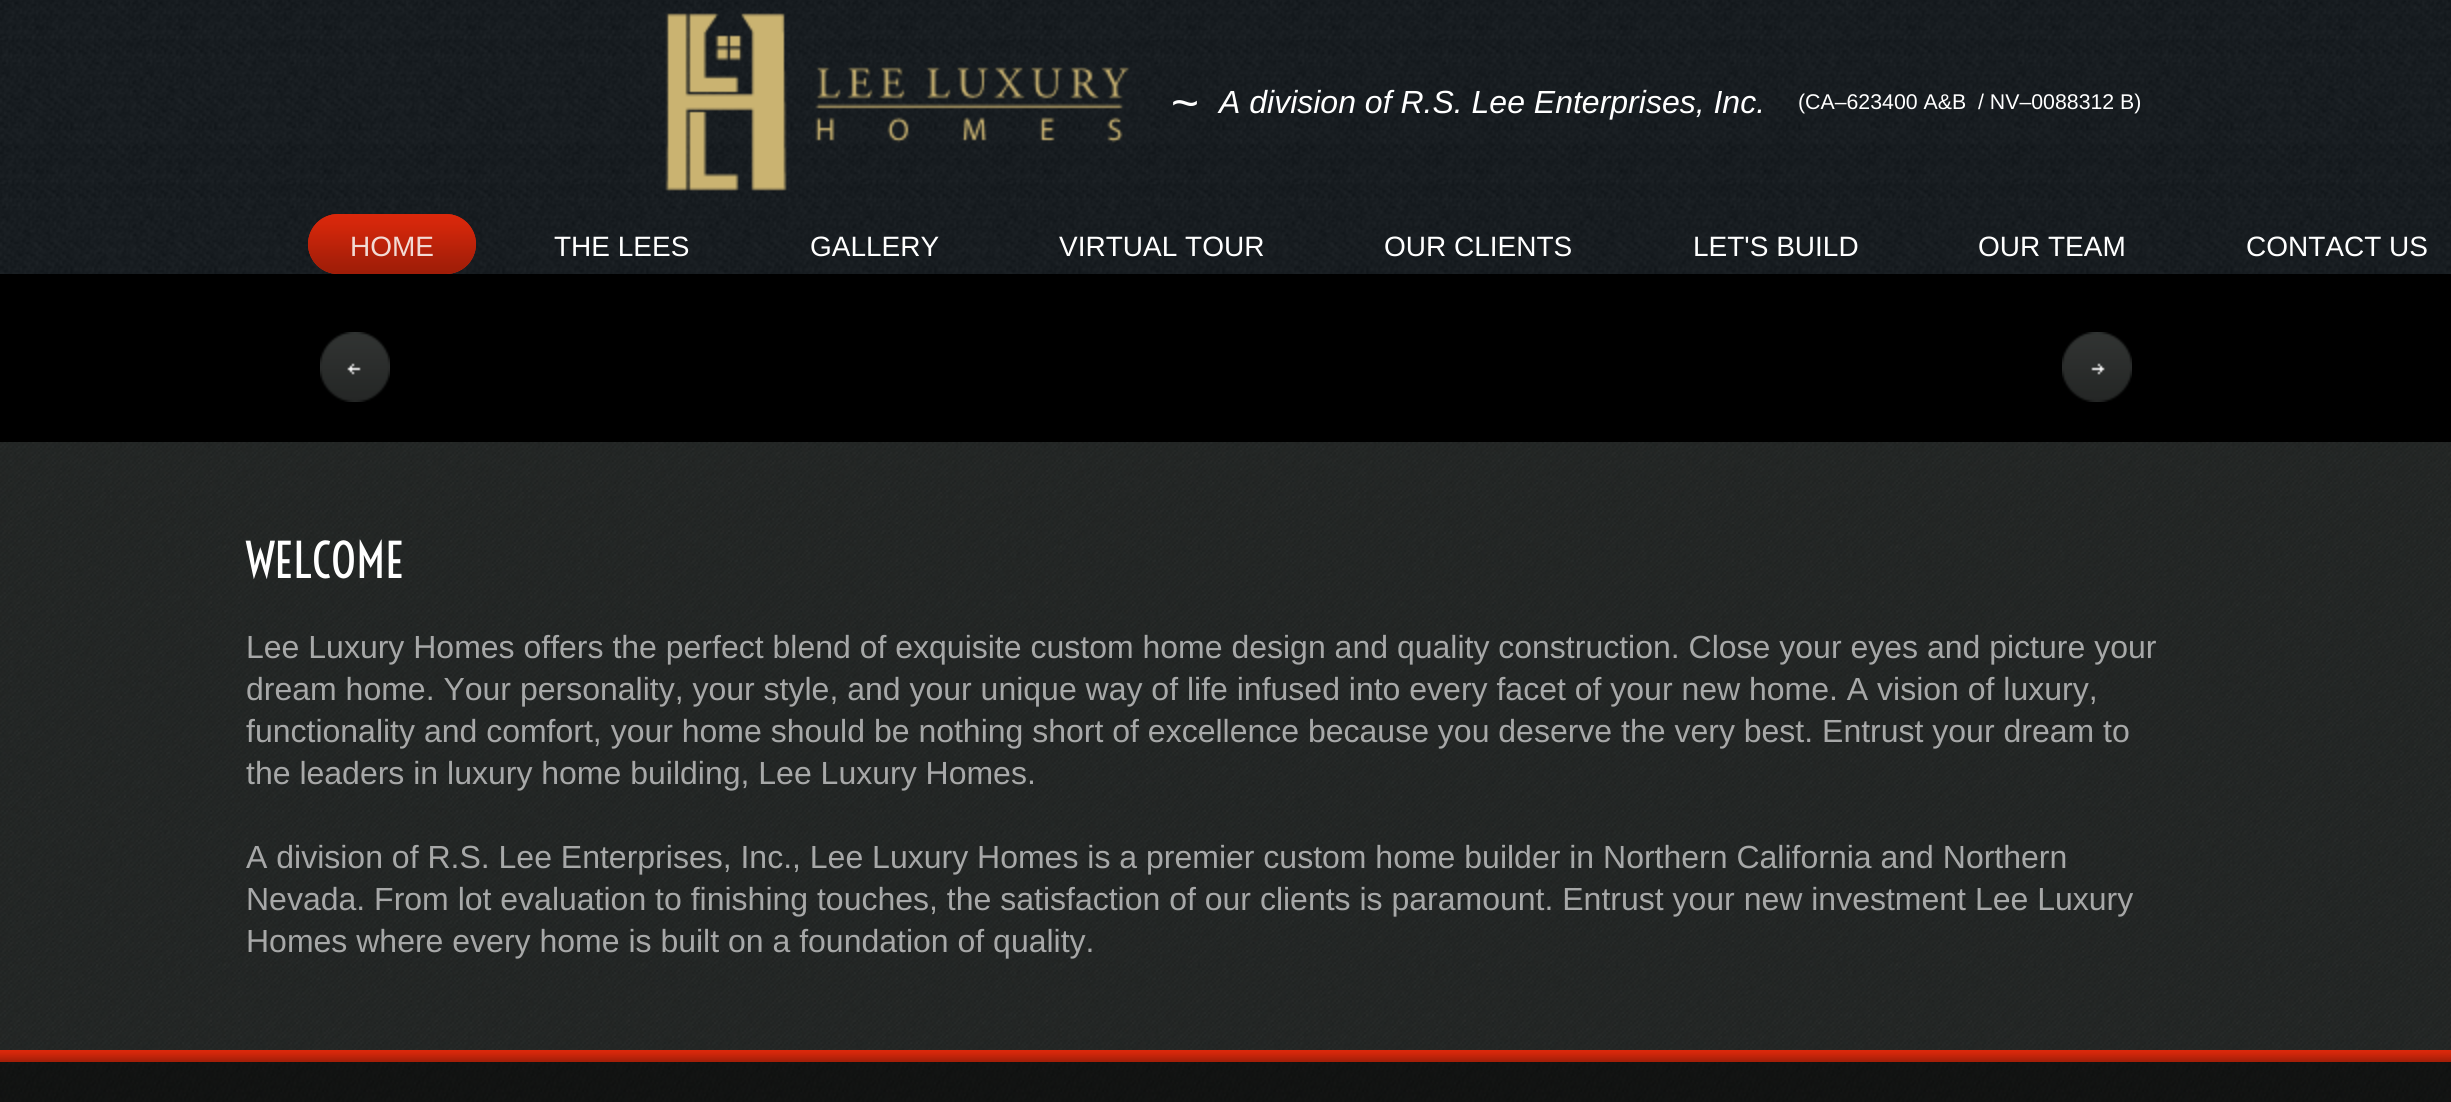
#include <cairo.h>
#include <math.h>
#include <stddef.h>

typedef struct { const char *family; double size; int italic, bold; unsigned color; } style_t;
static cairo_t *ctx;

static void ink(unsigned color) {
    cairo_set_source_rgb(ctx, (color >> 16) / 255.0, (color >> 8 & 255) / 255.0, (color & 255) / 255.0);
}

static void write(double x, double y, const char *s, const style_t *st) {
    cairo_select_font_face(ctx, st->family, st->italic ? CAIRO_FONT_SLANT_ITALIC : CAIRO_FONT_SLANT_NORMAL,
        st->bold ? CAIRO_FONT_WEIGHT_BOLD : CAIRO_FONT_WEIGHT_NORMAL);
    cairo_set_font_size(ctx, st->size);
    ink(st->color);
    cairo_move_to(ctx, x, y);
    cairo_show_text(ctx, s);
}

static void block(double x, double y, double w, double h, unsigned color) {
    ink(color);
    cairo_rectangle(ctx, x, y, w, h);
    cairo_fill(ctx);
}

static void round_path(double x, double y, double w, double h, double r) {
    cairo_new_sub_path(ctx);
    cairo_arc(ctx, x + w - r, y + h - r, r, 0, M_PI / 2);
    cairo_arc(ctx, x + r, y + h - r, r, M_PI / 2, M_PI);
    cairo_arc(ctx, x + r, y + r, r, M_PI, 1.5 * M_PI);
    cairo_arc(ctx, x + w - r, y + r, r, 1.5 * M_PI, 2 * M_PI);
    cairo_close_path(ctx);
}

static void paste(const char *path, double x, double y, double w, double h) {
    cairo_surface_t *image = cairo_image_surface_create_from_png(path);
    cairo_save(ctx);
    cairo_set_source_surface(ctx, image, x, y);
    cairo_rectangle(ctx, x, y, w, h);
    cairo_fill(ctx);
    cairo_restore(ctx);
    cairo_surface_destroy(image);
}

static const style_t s1 = {"Liberation Sans", 48, 0, 0, 0xffffff};
static const style_t s2 = {"Liberation Sans", 32, 1, 0, 0xffffff};
static const style_t s3 = {"Liberation Sans", 21.3, 0, 0, 0xffffff};
static const style_t s4 = {"Liberation Sans", 28, 0, 0, 0xf2dbd4};
static const style_t s5 = {"Liberation Sans", 28, 0, 0, 0xffffff};
static const style_t s6 = {"Voltaire", 48, 0, 0, 0xffffff};
static const style_t s7 = {"Liberation Sans", 32, 0, 0, 0xa7a8a8};

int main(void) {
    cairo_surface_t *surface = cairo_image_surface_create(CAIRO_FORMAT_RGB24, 2451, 1102);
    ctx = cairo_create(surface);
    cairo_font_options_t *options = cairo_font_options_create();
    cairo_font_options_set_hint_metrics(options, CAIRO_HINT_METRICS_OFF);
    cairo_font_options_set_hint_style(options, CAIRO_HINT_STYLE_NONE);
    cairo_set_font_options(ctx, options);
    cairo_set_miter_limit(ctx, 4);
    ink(0xffffff);
    cairo_paint(ctx);
    paste("pic1.png", 0, 1062, 2451, 40);
    paste("pic2.png", 0, 0, 2451, 274);
    paste("pic3.png", 665, 13, 465, 178);
    write(1171, 119, "~", &s1);
    write(1219, 113, "A division of R.S. Lee Enterprises, Inc.", &s2);
    write(1798, 109, "(CA–623400 A&B  / NV–0088312 B)", &s3);
    ink(0xda280b);
    round_path(308, 214, 168, 60, 30);
    cairo_fill(ctx);
    paste("pic4.png", 308, 214, 168, 60);
    write(350, 256, "HOME", &s4);
    write(554, 256, "THE LEES", &s5);
    write(810, 256, "GALLERY", &s5);
    write(1059, 256, "VIRTUAL TOUR", &s5);
    write(1384, 256, "OUR CLIENTS", &s5);
    write(1693, 256, "LET'S BUILD", &s5);
    write(1978, 256, "OUR TEAM", &s5);
    write(2246, 256, "CONTACT US", &s5);
    block(0, 432, 2451, 10, 0x000000);
    paste("pic5.png", 0, 274, 2451, 158);
    paste("pic6.png", 320, 332, 70, 70);
    paste("pic7.png", 2062, 332, 70, 70);
    paste("pic8.png", 0, 442, 2451, 608);
    write(246, 578, "WELCOME", &s6);
    write(246, 658, "Lee Luxury Homes offers the perfect blend of exquisite custom home design and quality construction. Close your eyes and picture your", &s7);
    write(246, 700, "dream home. Your personality, your style, and your unique way of life infused into every facet of your new home. A vision of luxury,", &s7);
    write(246, 742, "functionality and comfort, your home should be nothing short of excellence because you deserve the very best. Entrust your dream to", &s7);
    write(246, 784, "the leaders in luxury home building, Lee Luxury Homes.", &s7);
    write(246, 868, "A division of R.S. Lee Enterprises, Inc., Lee Luxury Homes is a premier custom home builder in Northern California and Northern", &s7);
    write(246, 910, "Nevada. From lot evaluation to finishing touches, the satisfaction of our clients is paramount. Entrust your new investment Lee Luxury", &s7);
    write(246, 952, "Homes where every home is built on a foundation of quality.", &s7);
    paste("pic9.png", 0, 1050, 2451, 12);
    cairo_surface_write_to_png(surface, "screenshot.png");
    cairo_font_options_destroy(options);
    cairo_destroy(ctx);
    cairo_surface_destroy(surface);
    return 0;
}
